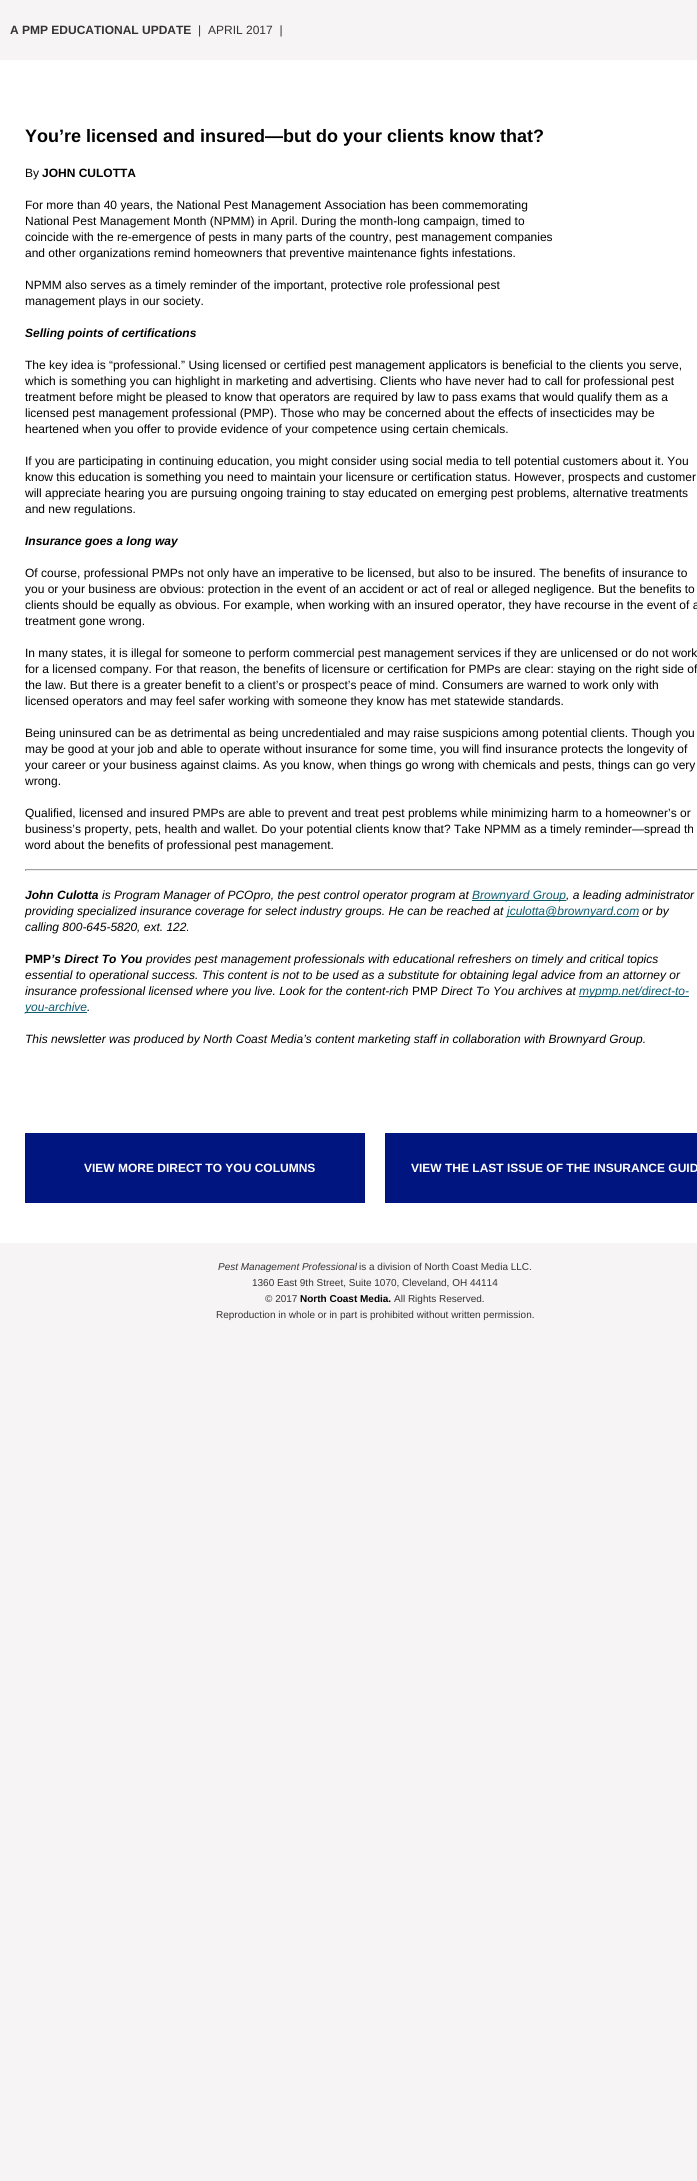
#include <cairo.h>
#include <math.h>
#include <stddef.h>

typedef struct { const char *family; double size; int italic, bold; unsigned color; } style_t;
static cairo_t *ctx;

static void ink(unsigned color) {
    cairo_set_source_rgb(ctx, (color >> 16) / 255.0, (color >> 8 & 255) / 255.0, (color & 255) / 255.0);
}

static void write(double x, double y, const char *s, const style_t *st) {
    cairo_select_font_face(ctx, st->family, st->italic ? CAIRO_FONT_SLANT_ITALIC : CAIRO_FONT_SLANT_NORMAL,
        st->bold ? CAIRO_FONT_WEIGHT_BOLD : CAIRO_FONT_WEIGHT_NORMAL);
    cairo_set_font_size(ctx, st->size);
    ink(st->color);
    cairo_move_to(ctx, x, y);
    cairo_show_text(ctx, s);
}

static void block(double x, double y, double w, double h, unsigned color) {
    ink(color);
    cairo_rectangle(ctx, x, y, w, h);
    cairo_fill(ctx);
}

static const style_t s1 = {"Liberation Sans", 12, 0, 1, 0x333333};
static const style_t s2 = {"Liberation Sans", 12, 0, 0, 0x333333};
static const style_t s3 = {"Liberation Sans", 18, 0, 1, 0x000000};
static const style_t s4 = {"Liberation Sans", 12, 0, 0, 0x000000};
static const style_t s5 = {"Liberation Sans", 12, 0, 1, 0x000000};
static const style_t s6 = {"Liberation Sans", 12, 1, 1, 0x000000};
static const style_t s7 = {"Liberation Sans", 12, 1, 0, 0x000000};
static const style_t s8 = {"Liberation Sans", 12, 1, 0, 0x0d5b6f};
static const style_t s9 = {"Liberation Sans", 12, 0, 1, 0xffffff};
static const style_t s10 = {"Liberation Sans", 10, 1, 0, 0x333333};
static const style_t s11 = {"Liberation Sans", 10, 0, 0, 0x333333};
static const style_t s12 = {"Liberation Sans", 10, 0, 1, 0x000000};

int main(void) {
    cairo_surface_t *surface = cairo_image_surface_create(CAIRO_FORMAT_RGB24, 697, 2181);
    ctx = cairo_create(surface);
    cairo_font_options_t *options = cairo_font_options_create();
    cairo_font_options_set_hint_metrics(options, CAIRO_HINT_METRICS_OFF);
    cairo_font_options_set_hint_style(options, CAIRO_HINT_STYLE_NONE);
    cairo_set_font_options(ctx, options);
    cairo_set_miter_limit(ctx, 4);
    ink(0xf6f4f5);
    cairo_paint(ctx);
    write(10, 34, "A PMP EDUCATIONAL UPDATE", &s1);
    write(198, 34, "|", &s2);
    write(208, 34, "APRIL 2017  |", &s2);
    block(0, 60, 697, 1183, 0xffffff);
    write(25, 142, "You’re licensed and insured—but do your clients know that?", &s3);
    write(25, 177, "By", &s4);
    write(42, 177, "JOHN CULOTTA", &s5);
    write(25, 209, "For more than 40 years, the National Pest Management Association has been commemorating", &s4);
    write(25, 225, "National Pest Management Month (NPMM) in April. During the month-long campaign, timed to", &s4);
    write(25, 241, "coincide with the re-emergence of pests in many parts of the country, pest management companies", &s4);
    write(25, 257, "and other organizations remind homeowners that preventive maintenance fights infestations.", &s4);
    write(25, 289, "NPMM also serves as a timely reminder of the important, protective role professional pest", &s4);
    write(25, 305, "management plays in our society.", &s4);
    write(25, 337, "Selling points of certifications", &s6);
    write(25, 369, "The key idea is “professional.” Using licensed or certified pest management applicators is beneficial to the clients you serve,", &s4);
    write(25, 385, "which is something you can highlight in marketing and advertising. Clients who have never had to call for professional pest", &s4);
    write(25, 401, "treatment before might be pleased to know that operators are required by law to pass exams that would qualify them as a", &s4);
    write(25, 417, "licensed pest management professional (PMP). Those who may be concerned about the effects of insecticides may be", &s4);
    write(25, 433, "heartened when you offer to provide evidence of your competence using certain chemicals.", &s4);
    write(25, 465, "If you are participating in continuing education, you might consider using social media to tell potential customers about it. You", &s4);
    write(25, 481, "know this education is something you need to maintain your licensure or certification status. However, prospects and customer", &s4);
    write(25, 497, "will appreciate hearing you are pursuing ongoing training to stay educated on emerging pest problems, alternative treatments", &s4);
    write(25, 513, "and new regulations.", &s4);
    write(25, 545, "Insurance goes a long way", &s6);
    write(25, 577, "Of course, professional PMPs not only have an imperative to be licensed, but also to be insured. The benefits of insurance to", &s4);
    write(25, 593, "you or your business are obvious: protection in the event of an accident or act of real or alleged negligence. But the benefits to", &s4);
    write(25, 609, "clients should be equally as obvious. For example, when working with an insured operator, they have recourse in the event of a", &s4);
    write(25, 625, "treatment gone wrong.", &s4);
    write(25, 657, "In many states, it is illegal for someone to perform commercial pest management services if they are unlicensed or do not work", &s4);
    write(25, 673, "for a licensed company. For that reason, the benefits of licensure or certification for PMPs are clear: staying on the right side of", &s4);
    write(25, 689, "the law. But there is a greater benefit to a client’s or prospect’s peace of mind. Consumers are warned to work only with", &s4);
    write(25, 705, "licensed operators and may feel safer working with someone they know has met statewide standards.", &s4);
    write(25, 737, "Being uninsured can be as detrimental as being uncredentialed and may raise suspicions among potential clients. Though you", &s4);
    write(25, 753, "may be good at your job and able to operate without insurance for some time, you will find insurance protects the longevity of", &s4);
    write(25, 769, "your career or your business against claims. As you know, when things go wrong with chemicals and pests, things can go very", &s4);
    write(25, 785, "wrong.", &s4);
    write(25, 817, "Qualified, licensed and insured PMPs are able to prevent and treat pest problems while minimizing harm to a homeowner’s or", &s4);
    write(25, 833, "business’s property, pets, health and wallet. Do your potential clients know that? Take NPMM as a timely reminder—spread th", &s4);
    write(25, 849, "word about the benefits of professional pest management.", &s4);
    block(25, 869, 672, 1, 0x9f9f9f);
    block(25, 870, 672, 1, 0xeeeeee);
    block(25, 869, 1, 2, 0x9f9f9f);
    write(25, 899, "John Culotta", &s6);
    write(102, 899, "is Program Manager of PCOpro, the pest control operator program at", &s7);
    block(472, 900, 94, 1, 0x0d5b6f);
    write(472, 899, "Brownyard Group", &s8);
    write(566, 899, ", a leading administrator", &s7);
    write(25, 915, "providing specialized insurance coverage for select industry groups. He can be reached at", &s7);
    block(507, 916, 132, 1, 0x0d5b6f);
    write(507, 915, "jculotta@brownyard.com", &s8);
    write(642, 915, "or by", &s7);
    write(25, 931, "calling 800-645-5820, ext. 122.", &s7);
    write(25, 963, "PMP", &s5);
    write(51, 963, "’s Direct To You", &s6);
    write(146, 963, "provides pest management professionals with educational refreshers on timely and critical topics", &s7);
    write(25, 979, "essential to operational success. This content is not to be used as a substitute for obtaining legal advice from an attorney or", &s7);
    write(25, 995, "insurance professional licensed where you live. Look for the content-rich", &s7);
    write(412, 995, "PMP", &s4);
    write(441, 995, "Direct To You archives at", &s7);
    block(579, 996, 110, 1, 0x0d5b6f);
    write(579, 995, "mypmp.net/direct-to-", &s8);
    block(25, 1012, 62, 1, 0x0d5b6f);
    write(25, 1011, "you-archive", &s8);
    write(87, 1011, ".", &s7);
    write(25, 1043, "This newsletter was produced by North Coast Media’s content marketing staff in collaboration with Brownyard Group.", &s7);
    block(25, 1133, 340, 70, 0x011581);
    write(84, 1172, "VIEW MORE DIRECT TO YOU COLUMNS", &s9);
    block(385, 1133, 312, 70, 0x011581);
    write(411, 1172, "VIEW THE LAST ISSUE OF THE INSURANCE GUID", &s9);
    write(218, 1270, "Pest Management Professional", &s10);
    write(359, 1270, "is a division of North Coast Media LLC.", &s11);
    write(252, 1286, "1360 East 9th Street, Suite 1070, Cleveland, OH 44114", &s11);
    write(265, 1302, "© 2017", &s11);
    write(300, 1302, "North Coast Media.", &s12);
    write(394, 1302, "All Rights Reserved.", &s11);
    write(216, 1318, "Reproduction in whole or in part is prohibited without written permission.", &s11);
    cairo_surface_write_to_png(surface, "screenshot.png");
    cairo_font_options_destroy(options);
    cairo_destroy(ctx);
    cairo_surface_destroy(surface);
    return 0;
}
